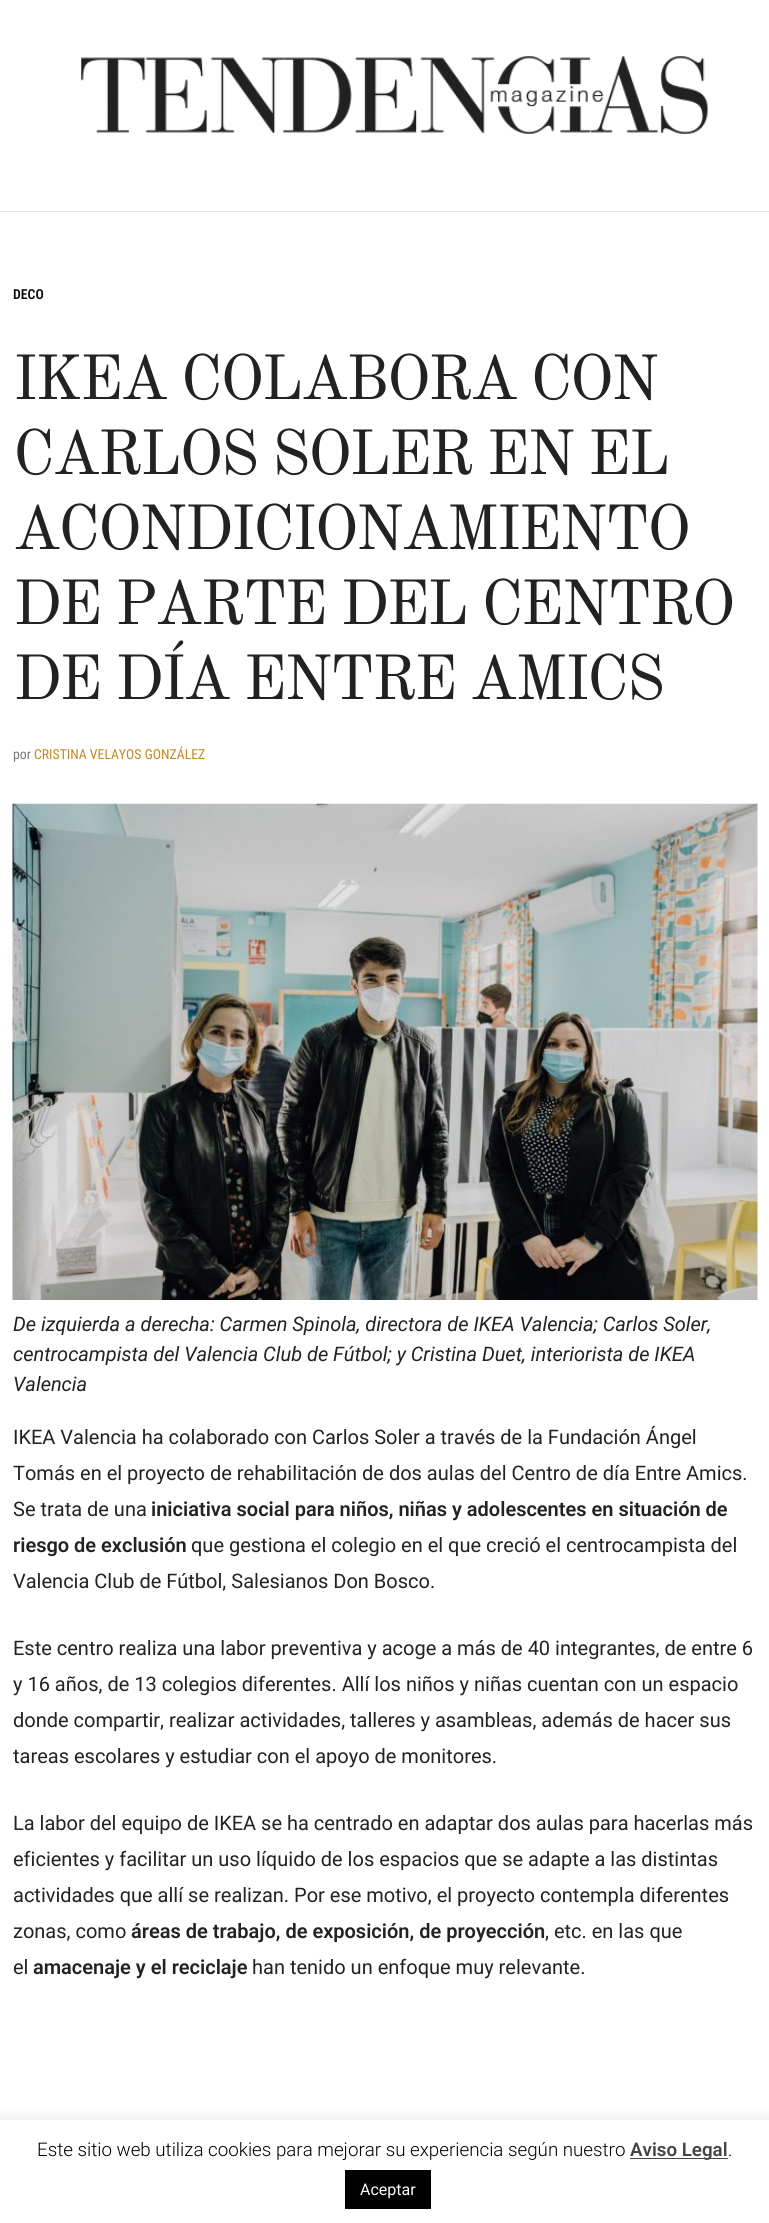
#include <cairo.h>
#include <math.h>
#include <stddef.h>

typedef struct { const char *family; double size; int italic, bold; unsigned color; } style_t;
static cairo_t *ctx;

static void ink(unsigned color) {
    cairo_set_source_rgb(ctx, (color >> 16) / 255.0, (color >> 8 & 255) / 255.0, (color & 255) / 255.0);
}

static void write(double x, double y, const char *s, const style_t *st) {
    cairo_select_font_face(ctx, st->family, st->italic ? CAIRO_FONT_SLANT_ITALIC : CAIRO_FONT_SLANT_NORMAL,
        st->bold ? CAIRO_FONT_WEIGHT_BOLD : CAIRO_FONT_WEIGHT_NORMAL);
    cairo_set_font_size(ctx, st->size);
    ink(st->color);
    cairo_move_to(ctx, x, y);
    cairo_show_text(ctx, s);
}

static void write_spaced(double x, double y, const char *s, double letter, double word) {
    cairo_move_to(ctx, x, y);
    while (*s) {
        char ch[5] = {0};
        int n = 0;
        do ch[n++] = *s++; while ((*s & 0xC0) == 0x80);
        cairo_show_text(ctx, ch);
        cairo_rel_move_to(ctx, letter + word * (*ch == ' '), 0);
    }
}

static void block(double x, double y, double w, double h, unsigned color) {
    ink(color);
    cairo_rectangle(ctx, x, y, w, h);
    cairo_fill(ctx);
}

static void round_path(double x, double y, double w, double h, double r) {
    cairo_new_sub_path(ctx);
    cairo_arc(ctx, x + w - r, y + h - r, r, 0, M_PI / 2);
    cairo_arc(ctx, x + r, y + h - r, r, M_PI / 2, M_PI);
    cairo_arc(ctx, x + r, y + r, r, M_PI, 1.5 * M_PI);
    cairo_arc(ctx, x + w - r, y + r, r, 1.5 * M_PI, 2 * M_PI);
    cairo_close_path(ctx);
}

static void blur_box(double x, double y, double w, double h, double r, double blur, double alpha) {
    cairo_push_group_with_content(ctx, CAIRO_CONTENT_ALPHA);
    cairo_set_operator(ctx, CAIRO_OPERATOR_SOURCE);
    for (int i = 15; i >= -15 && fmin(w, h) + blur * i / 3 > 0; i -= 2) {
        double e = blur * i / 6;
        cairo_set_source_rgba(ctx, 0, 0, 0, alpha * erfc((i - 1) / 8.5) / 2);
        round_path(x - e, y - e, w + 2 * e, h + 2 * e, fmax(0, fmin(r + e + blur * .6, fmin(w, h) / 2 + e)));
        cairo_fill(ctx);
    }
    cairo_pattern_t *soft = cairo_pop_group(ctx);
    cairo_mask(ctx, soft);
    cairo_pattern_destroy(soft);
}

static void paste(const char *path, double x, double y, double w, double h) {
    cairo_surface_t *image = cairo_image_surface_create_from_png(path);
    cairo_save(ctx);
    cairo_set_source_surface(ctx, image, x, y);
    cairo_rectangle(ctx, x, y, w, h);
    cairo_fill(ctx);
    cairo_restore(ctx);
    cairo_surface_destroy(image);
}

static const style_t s1 = {"Roboto Condensed SemiBold", 13.75, 0, 0, 0x0a0a0a};
static const style_t s2 = {"Roboto Condensed", 13.75, 0, 0, 0x767676};
static const style_t s3 = {"Roboto Condensed", 13.75, 0, 0, 0xc18921};
static const style_t s4 = {"Roboto", 20, 1, 0, 0x222222};
static const style_t s5 = {"Roboto", 20, 0, 0, 0x222222};
static const style_t s6 = {"Roboto SemiBold", 20, 0, 0, 0x222222};
static const style_t s7 = {"Roboto Light", 18.75, 0, 0, 0x000000};
static const style_t s8 = {"Roboto SemiBold", 18.75, 0, 0, 0x444444};
static const style_t s9 = {"Roboto", 16, 0, 0, 0xffffff};

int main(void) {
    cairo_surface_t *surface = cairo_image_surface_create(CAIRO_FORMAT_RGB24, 769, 2223);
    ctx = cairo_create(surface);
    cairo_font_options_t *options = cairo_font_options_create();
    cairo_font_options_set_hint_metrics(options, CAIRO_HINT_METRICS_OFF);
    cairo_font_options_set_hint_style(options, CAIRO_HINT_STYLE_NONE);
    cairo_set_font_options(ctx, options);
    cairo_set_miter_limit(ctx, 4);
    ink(0xffffff);
    cairo_paint(ctx);
    block(0, 211, 769, 1, 0xe6e6e6);
    paste("pic1.png", 81, 56, 627, 78);
    write(13, 299, "DECO", &s1);
    cairo_select_font_face(ctx, "Old Standard TT", CAIRO_FONT_SLANT_NORMAL, CAIRO_FONT_WEIGHT_NORMAL);
    cairo_set_font_size(ctx, 62.5);
    ink(0x222222);
    write_spaced(13, 399, "IKEA COLABORA CON", -2.5, 0);
    write_spaced(13, 474, "CARLOS SOLER EN EL", -2.5, 0);
    write_spaced(13, 549, "ACONDICIONAMIENTO", -2.5, 0);
    write_spaced(13, 624, "DE PARTE DEL CENTRO", -2.5, 0);
    write_spaced(13, 699, "DE DÍA ENTRE AMICS", -2.5, 0);
    write(13, 759, "por", &s2);
    write(34, 759, "CRISTINA VELAYOS GONZÁLEZ", &s3);
    paste("pic2.png", 12, 803, 746, 497);
    write(13, 1331, "De izquierda a derecha: Carmen Spinola, directora de IKEA Valencia; Carlos Soler,", &s4);
    write(13, 1361, "centrocampista del Valencia Club de Fútbol; y Cristina Duet, interiorista de IKEA", &s4);
    write(13, 1391, "Valencia", &s4);
    write(13, 1444, "IKEA Valencia ha colaborado con Carlos Soler a través de la Fundación Ángel", &s5);
    write(13, 1480, "Tomás en el proyecto de rehabilitación de dos aulas del Centro de día Entre Amics.", &s5);
    write(13, 1516, "Se trata de una", &s5);
    write(151, 1516, "iniciativa social para niños, niñas y adolescentes en situación de", &s6);
    write(13, 1552, "riesgo de exclusión", &s6);
    write(191, 1552, "que gestiona el colegio en el que creció el centrocampista del", &s5);
    write(13, 1588, "Valencia Club de Fútbol, Salesianos Don Bosco.", &s5);
    write(13, 1655, "Este centro realiza una labor preventiva y acoge a más de 40 integrantes, de entre 6", &s5);
    write(13, 1691, "y 16 años, de 13 colegios diferentes. Allí los niños y niñas cuentan con un espacio", &s5);
    write(13, 1727, "donde compartir, realizar actividades, talleres y asambleas, además de hacer sus", &s5);
    write(13, 1763, "tareas escolares y estudiar con el apoyo de monitores.", &s5);
    write(13, 1830, "La labor del equipo de IKEA se ha centrado en adaptar dos aulas para hacerlas más", &s5);
    write(13, 1866, "eficientes y facilitar un uso líquido de los espacios que se adapte a las distintas", &s5);
    write(13, 1902, "actividades que allí se realizan. Por ese motivo, el proyecto contempla diferentes", &s5);
    write(13, 1938, "zonas, como", &s5);
    write(131, 1938, "áreas de trabajo, de exposición, de proyección", &s6);
    write(545, 1938, ", etc. en las que", &s5);
    write(13, 1974, "el", &s5);
    write(33, 1974, "amacenaje y el reciclaje", &s6);
    write(252, 1974, "han tenido un enfoque muy relevante.", &s5);
    ink(0xacabab);
    blur_box(0, 2119, 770, 104, 0, 6, 0.3);
    block(0, 2120, 769, 103, 0xffffff);
    write(37, 2156, "Este sitio web utiliza cookies para mejorar su experiencia según nuestro", &s7);
    block(630, 2158, 98, 1, 0x444444);
    write(630, 2156, "Aviso Legal", &s8);
    write(728, 2156, ".", &s7);
    block(345, 2170, 86, 39, 0x000000);
    write(360, 2195, "Aceptar", &s9);
    cairo_surface_write_to_png(surface, "screenshot.png");
    cairo_font_options_destroy(options);
    cairo_destroy(ctx);
    cairo_surface_destroy(surface);
    return 0;
}
